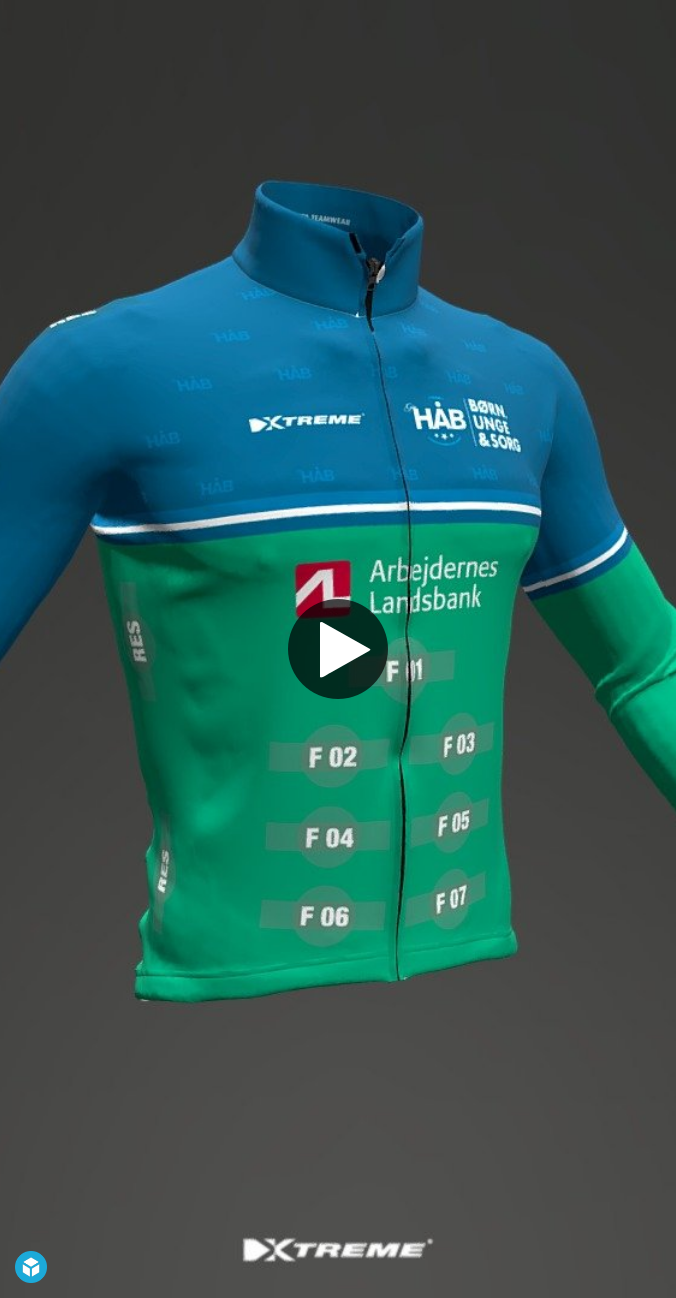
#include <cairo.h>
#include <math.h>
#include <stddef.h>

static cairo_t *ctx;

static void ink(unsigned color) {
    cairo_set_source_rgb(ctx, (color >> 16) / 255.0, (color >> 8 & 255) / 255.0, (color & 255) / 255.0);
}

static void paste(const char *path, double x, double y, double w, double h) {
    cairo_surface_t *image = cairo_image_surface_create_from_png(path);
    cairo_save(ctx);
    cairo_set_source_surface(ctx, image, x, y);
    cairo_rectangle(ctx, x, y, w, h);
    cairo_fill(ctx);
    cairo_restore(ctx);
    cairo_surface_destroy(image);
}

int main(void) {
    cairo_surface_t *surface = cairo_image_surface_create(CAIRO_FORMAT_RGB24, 676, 1298);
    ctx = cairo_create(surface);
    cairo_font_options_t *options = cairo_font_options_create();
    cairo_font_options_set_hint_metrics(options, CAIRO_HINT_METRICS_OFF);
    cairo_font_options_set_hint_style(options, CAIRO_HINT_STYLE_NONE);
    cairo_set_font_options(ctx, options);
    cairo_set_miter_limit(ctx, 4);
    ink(0xffffff);
    cairo_paint(ctx);
    paste("pic1.png", 0, 0, 676, 1298);
    cairo_set_source_rgba(ctx, 0, 0, 0, 0.7);
    cairo_arc(ctx, 338, 649, 50, 0, 2 * M_PI);
    cairo_fill(ctx);
    ink(0xffffff);
    cairo_new_path(ctx);
    cairo_move_to(ctx, 369, 651);
    cairo_line_to(ctx, 330, 673);
    cairo_curve_to(ctx, 329, 673, 322, 679, 320, 677);
    cairo_line_to(ctx, 320, 623);
    cairo_curve_to(ctx, 320, 622, 321, 622, 322, 622);
    cairo_line_to(ctx, 370, 649);
    cairo_curve_to(ctx, 371, 650, 370, 650, 369, 651);
    cairo_close_path(ctx);
    cairo_fill(ctx);
    paste("pic2.png", 15, 1251, 32, 32);
    cairo_surface_write_to_png(surface, "screenshot.png");
    cairo_font_options_destroy(options);
    cairo_destroy(ctx);
    cairo_surface_destroy(surface);
    return 0;
}
